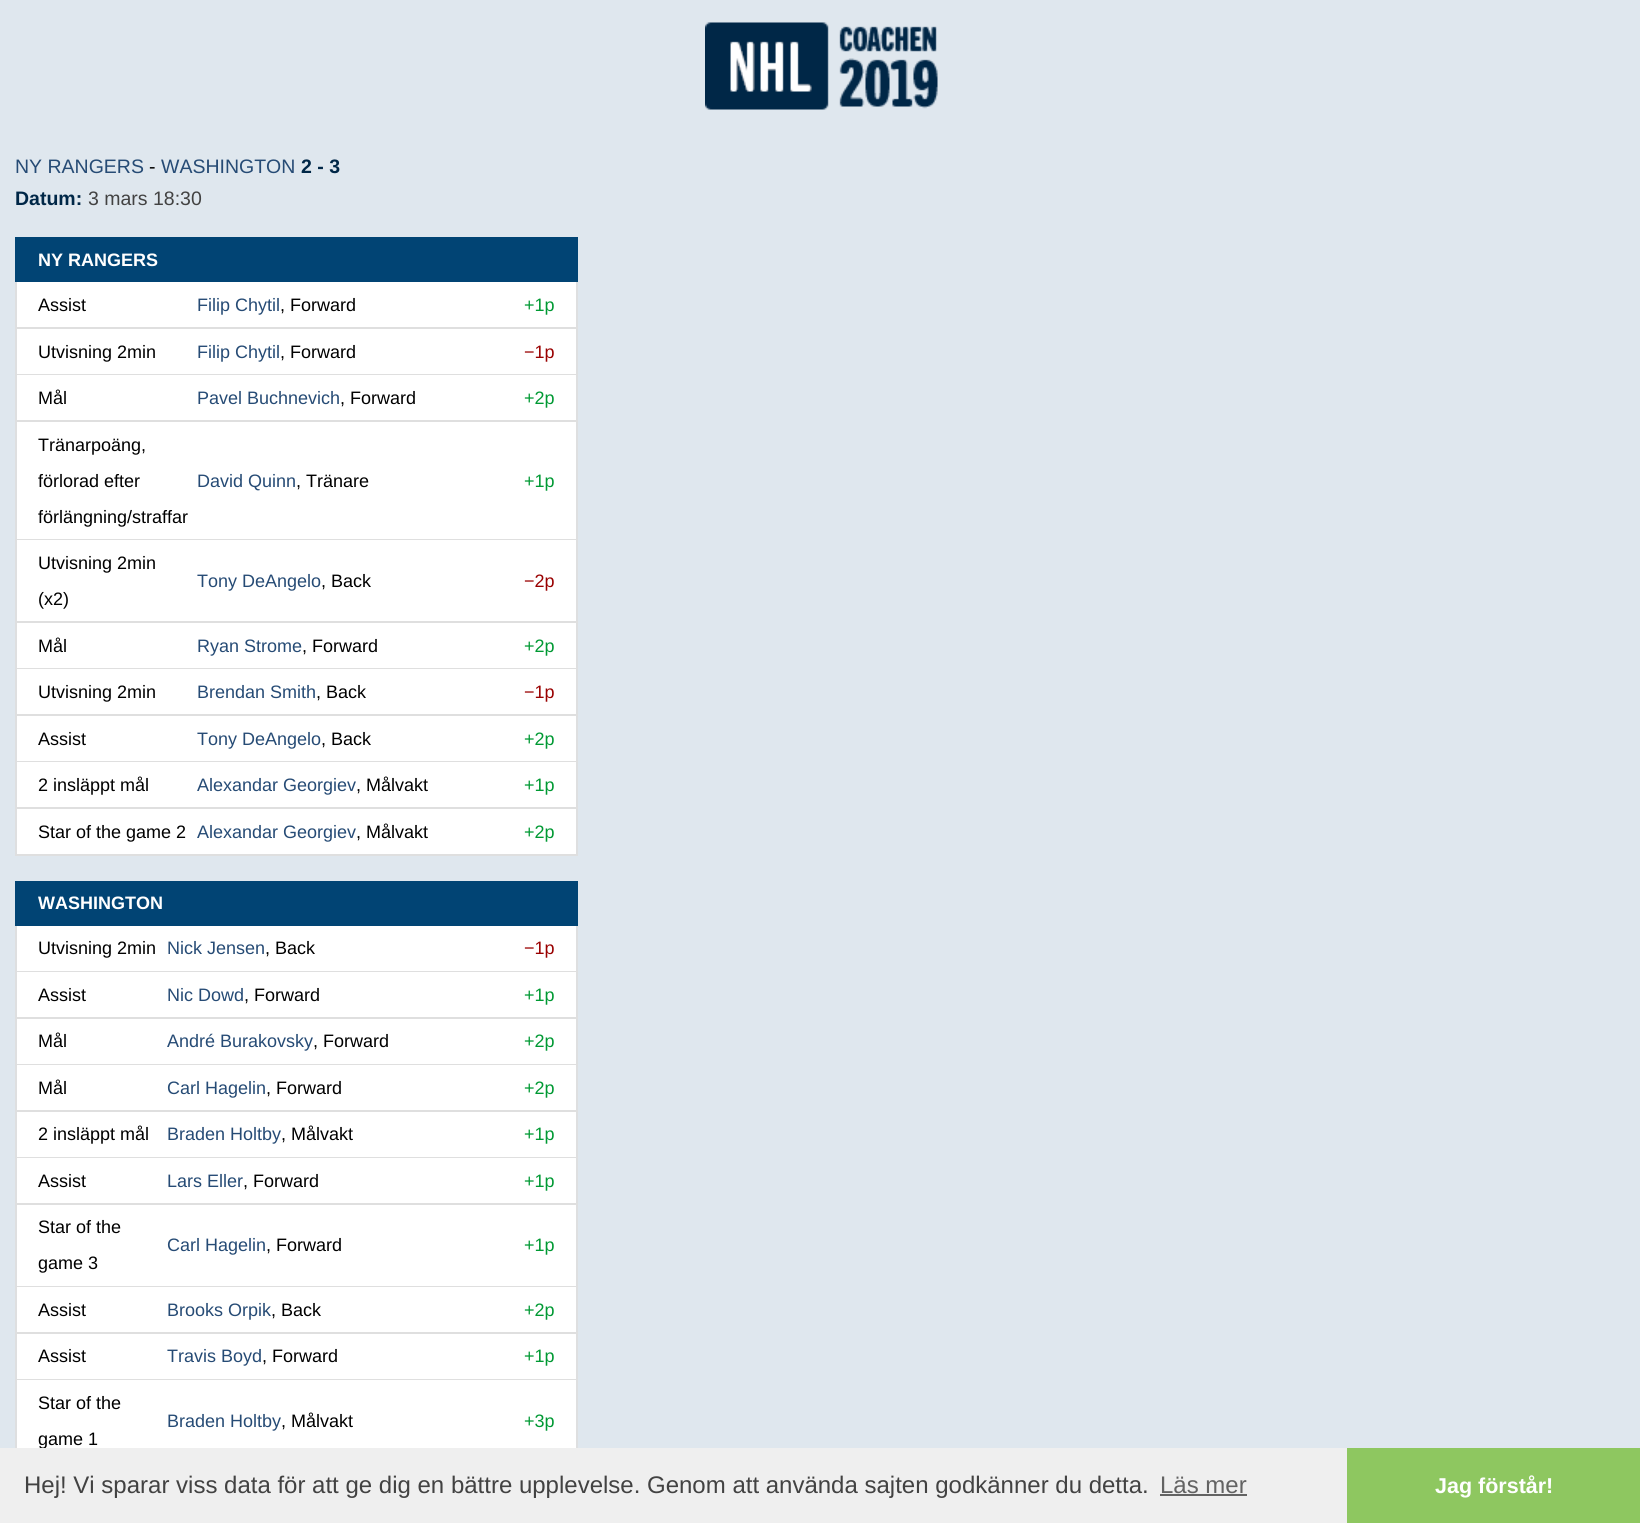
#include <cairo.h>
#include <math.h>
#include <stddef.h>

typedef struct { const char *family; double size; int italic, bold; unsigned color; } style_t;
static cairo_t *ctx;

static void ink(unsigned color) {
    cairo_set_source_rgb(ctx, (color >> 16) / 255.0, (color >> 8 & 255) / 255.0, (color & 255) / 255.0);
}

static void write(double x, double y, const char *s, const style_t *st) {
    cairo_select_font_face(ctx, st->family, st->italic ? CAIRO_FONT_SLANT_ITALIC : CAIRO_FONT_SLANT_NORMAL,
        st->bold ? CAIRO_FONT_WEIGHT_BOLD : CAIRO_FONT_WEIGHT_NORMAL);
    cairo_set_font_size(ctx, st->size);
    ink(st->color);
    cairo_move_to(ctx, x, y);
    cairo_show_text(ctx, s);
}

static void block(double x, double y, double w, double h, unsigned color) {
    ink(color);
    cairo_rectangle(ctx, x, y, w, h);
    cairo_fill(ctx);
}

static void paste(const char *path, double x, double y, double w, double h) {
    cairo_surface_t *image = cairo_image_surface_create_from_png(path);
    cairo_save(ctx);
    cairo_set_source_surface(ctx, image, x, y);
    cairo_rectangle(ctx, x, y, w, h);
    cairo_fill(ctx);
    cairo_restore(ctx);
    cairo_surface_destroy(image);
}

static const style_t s1 = {"Liberation Sans", 19.5, 0, 0, 0x264b75};
static const style_t s2 = {"Liberation Sans", 19.5, 0, 0, 0x000000};
static const style_t s3 = {"Liberation Sans", 19.5, 0, 1, 0x002747};
static const style_t s4 = {"Liberation Sans", 19.5, 0, 0, 0x424242};
static const style_t s5 = {"Liberation Sans", 18, 0, 1, 0xffffff};
static const style_t s6 = {"Liberation Sans", 18, 0, 0, 0x000000};
static const style_t s7 = {"Liberation Sans", 18, 0, 0, 0x264b75};
static const style_t s8 = {"Liberation Sans", 18, 0, 0, 0x009933};
static const style_t s9 = {"Liberation Sans", 18, 0, 0, 0x990000};
static const style_t s10 = {"Liberation Sans", 24, 0, 0, 0x424242};
static const style_t s11 = {"Liberation Sans", 24, 0, 0, 0x636363};
static const style_t s12 = {"Liberation Sans", 21.5, 0, 1, 0xffffff};

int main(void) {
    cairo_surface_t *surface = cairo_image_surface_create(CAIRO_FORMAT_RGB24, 1640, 1523);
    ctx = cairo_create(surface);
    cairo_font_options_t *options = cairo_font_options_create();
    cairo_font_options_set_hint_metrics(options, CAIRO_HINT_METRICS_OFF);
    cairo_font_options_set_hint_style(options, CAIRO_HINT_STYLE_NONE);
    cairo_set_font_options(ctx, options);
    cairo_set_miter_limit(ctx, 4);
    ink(0xdfe7ee);
    cairo_paint(ctx);
    paste("pic1.png", 705, 22, 233, 88);
    write(15, 173, "NY RANGERS", &s1);
    write(149, 173, "-", &s2);
    write(161, 173, "WASHINGTON", &s1);
    write(301, 173, "2 - 3", &s3);
    write(15, 205, "Datum:", &s3);
    write(88, 205, "3 mars 18:30", &s4);
    block(15, 237, 563, 45, 0x014474);
    write(38, 266, "NY RANGERS", &s5);
    block(17, 282, 559, 45, 0xffffff);
    block(15, 327, 545, 2, 0xdfdfdf);
    block(15, 282, 2, 47, 0xdedfe0);
    block(576, 282, 2, 573, 0xdedfe0);
    block(560, 327, 18, 2, 0xdfdfdf);
    write(38, 311, "Assist", &s6);
    write(197, 311, "Filip Chytil", &s7);
    write(280, 311, ", Forward", &s6);
    write(524, 311, "+1p", &s8);
    block(17, 329, 559, 45, 0xffffff);
    block(15, 374, 563, 1, 0xdfdfdf);
    block(15, 329, 2, 46, 0xdedfe0);
    write(38, 358, "Utvisning 2min", &s6);
    write(197, 358, "Filip Chytil", &s7);
    write(280, 358, ", Forward", &s6);
    write(524, 358, "−1p", &s9);
    block(17, 375, 559, 45, 0xffffff);
    block(15, 420, 563, 2, 0xdfdfdf);
    block(15, 375, 2, 47, 0xdedfe0);
    write(38, 404, "Mål", &s6);
    write(197, 404, "Pavel Buchnevich", &s7);
    write(340, 404, ", Forward", &s6);
    write(524, 404, "+2p", &s8);
    block(17, 422, 559, 117, 0xffffff);
    block(15, 539, 563, 1, 0xdfdfdf);
    block(15, 422, 2, 118, 0xdedfe0);
    write(38, 451, "Tränarpoäng,", &s6);
    write(38, 487, "förlorad efter", &s6);
    write(38, 523, "förlängning/straffar", &s6);
    write(197, 487, "David Quinn", &s7);
    write(296, 487, ", Tränare", &s6);
    write(524, 487, "+1p", &s8);
    block(17, 540, 559, 81, 0xffffff);
    block(15, 621, 563, 2, 0xdfdfdf);
    block(15, 540, 2, 83, 0xdedfe0);
    write(38, 569, "Utvisning 2min", &s6);
    write(38, 605, "(x2)", &s6);
    write(197, 587, "Tony DeAngelo", &s7);
    write(321, 587, ", Back", &s6);
    write(524, 587, "−2p", &s9);
    block(17, 623, 559, 45, 0xffffff);
    block(15, 668, 563, 1, 0xdfdfdf);
    block(15, 623, 2, 46, 0xdedfe0);
    write(38, 652, "Mål", &s6);
    write(197, 652, "Ryan Strome", &s7);
    write(302, 652, ", Forward", &s6);
    write(524, 652, "+2p", &s8);
    block(17, 669, 559, 45, 0xffffff);
    block(15, 714, 563, 2, 0xdfdfdf);
    block(15, 669, 2, 47, 0xdedfe0);
    write(38, 698, "Utvisning 2min", &s6);
    write(197, 698, "Brendan Smith", &s7);
    write(316, 698, ", Back", &s6);
    write(524, 698, "−1p", &s9);
    block(17, 716, 559, 45, 0xffffff);
    block(15, 761, 563, 1, 0xdfdfdf);
    block(15, 716, 2, 46, 0xdedfe0);
    write(38, 745, "Assist", &s6);
    write(197, 745, "Tony DeAngelo", &s7);
    write(321, 745, ", Back", &s6);
    write(524, 745, "+2p", &s8);
    block(17, 762, 559, 45, 0xffffff);
    block(15, 807, 563, 2, 0xdfdfdf);
    block(15, 762, 2, 47, 0xdedfe0);
    write(38, 791, "2 insläppt mål", &s6);
    write(197, 791, "Alexandar Georgiev", &s7);
    write(356, 791, ", Målvakt", &s6);
    write(524, 791, "+1p", &s8);
    block(17, 809, 559, 45, 0xffffff);
    block(15, 854, 563, 2, 0xdfdfdf);
    block(15, 809, 2, 46, 0xdedfe0);
    write(38, 838, "Star of the game 2", &s6);
    write(197, 838, "Alexandar Georgiev", &s7);
    write(356, 838, ", Målvakt", &s6);
    write(524, 838, "+2p", &s8);
    block(15, 881, 563, 45, 0x014474);
    write(38, 909, "WASHINGTON", &s5);
    block(17, 926, 559, 45, 0xffffff);
    block(15, 971, 545, 1, 0xdfdfdf);
    block(15, 926, 2, 46, 0xdedfe0);
    block(576, 926, 2, 522, 0xdedfe0);
    block(560, 971, 18, 1, 0xdfdfdf);
    write(38, 954, "Utvisning 2min", &s6);
    write(167, 954, "Nick Jensen", &s7);
    write(265, 954, ", Back", &s6);
    write(524, 954, "−1p", &s9);
    block(17, 972, 559, 45, 0xffffff);
    block(15, 1017, 563, 2, 0xdfdfdf);
    block(15, 972, 2, 47, 0xdedfe0);
    write(38, 1001, "Assist", &s6);
    write(167, 1001, "Nic Dowd", &s7);
    write(244, 1001, ", Forward", &s6);
    write(524, 1001, "+1p", &s8);
    block(17, 1019, 559, 45, 0xffffff);
    block(15, 1064, 563, 1, 0xdfdfdf);
    block(15, 1019, 2, 46, 0xdedfe0);
    write(38, 1047, "Mål", &s6);
    write(167, 1047, "André Burakovsky", &s7);
    write(313, 1047, ", Forward", &s6);
    write(524, 1047, "+2p", &s8);
    block(17, 1065, 559, 45, 0xffffff);
    block(15, 1110, 563, 2, 0xdfdfdf);
    block(15, 1065, 2, 47, 0xdedfe0);
    write(38, 1094, "Mål", &s6);
    write(167, 1094, "Carl Hagelin", &s7);
    write(266, 1094, ", Forward", &s6);
    write(524, 1094, "+2p", &s8);
    block(17, 1112, 559, 45, 0xffffff);
    block(15, 1157, 563, 1, 0xdfdfdf);
    block(15, 1112, 2, 46, 0xdedfe0);
    write(38, 1140, "2 insläppt mål", &s6);
    write(167, 1140, "Braden Holtby", &s7);
    write(281, 1140, ", Målvakt", &s6);
    write(524, 1140, "+1p", &s8);
    block(17, 1158, 559, 45, 0xffffff);
    block(15, 1203, 563, 2, 0xdfdfdf);
    block(15, 1158, 2, 47, 0xdedfe0);
    write(38, 1187, "Assist", &s6);
    write(167, 1187, "Lars Eller", &s7);
    write(243, 1187, ", Forward", &s6);
    write(524, 1187, "+1p", &s8);
    block(17, 1205, 559, 81, 0xffffff);
    block(15, 1286, 563, 1, 0xdfdfdf);
    block(15, 1205, 2, 82, 0xdedfe0);
    write(38, 1233, "Star of the", &s6);
    write(38, 1269, "game 3", &s6);
    write(167, 1251, "Carl Hagelin", &s7);
    write(266, 1251, ", Forward", &s6);
    write(524, 1251, "+1p", &s8);
    block(17, 1287, 559, 45, 0xffffff);
    block(15, 1332, 563, 2, 0xdfdfdf);
    block(15, 1287, 2, 47, 0xdedfe0);
    write(38, 1316, "Assist", &s6);
    write(167, 1316, "Brooks Orpik", &s7);
    write(271, 1316, ", Back", &s6);
    write(524, 1316, "+2p", &s8);
    block(17, 1334, 559, 45, 0xffffff);
    block(15, 1379, 563, 1, 0xdfdfdf);
    block(15, 1334, 2, 114, 0xdedfe0);
    write(38, 1362, "Assist", &s6);
    write(167, 1362, "Travis Boyd", &s7);
    write(262, 1362, ", Forward", &s6);
    write(524, 1362, "+1p", &s8);
    block(17, 1380, 559, 68, 0xffffff);
    write(38, 1409, "Star of the", &s6);
    write(38, 1445, "game 1", &s6);
    write(167, 1427, "Braden Holtby", &s7);
    write(281, 1427, ", Målvakt", &s6);
    write(524, 1427, "+3p", &s8);
    block(0, 1448, 1347, 75, 0xefefef);
    write(24, 1493, "Hej! Vi sparar viss data för att ge dig en bättre upplevelse. Genom att använda sajten godkänner du detta.", &s10);
    write(1160, 1493, "Läs mer", &s11);
    block(1160, 1494, 87, 2, 0x636363);
    block(1347, 1448, 293, 75, 0x8ec760);
    write(1435, 1493, "Jag förstår!", &s12);
    cairo_surface_write_to_png(surface, "screenshot.png");
    cairo_font_options_destroy(options);
    cairo_destroy(ctx);
    cairo_surface_destroy(surface);
    return 0;
}
